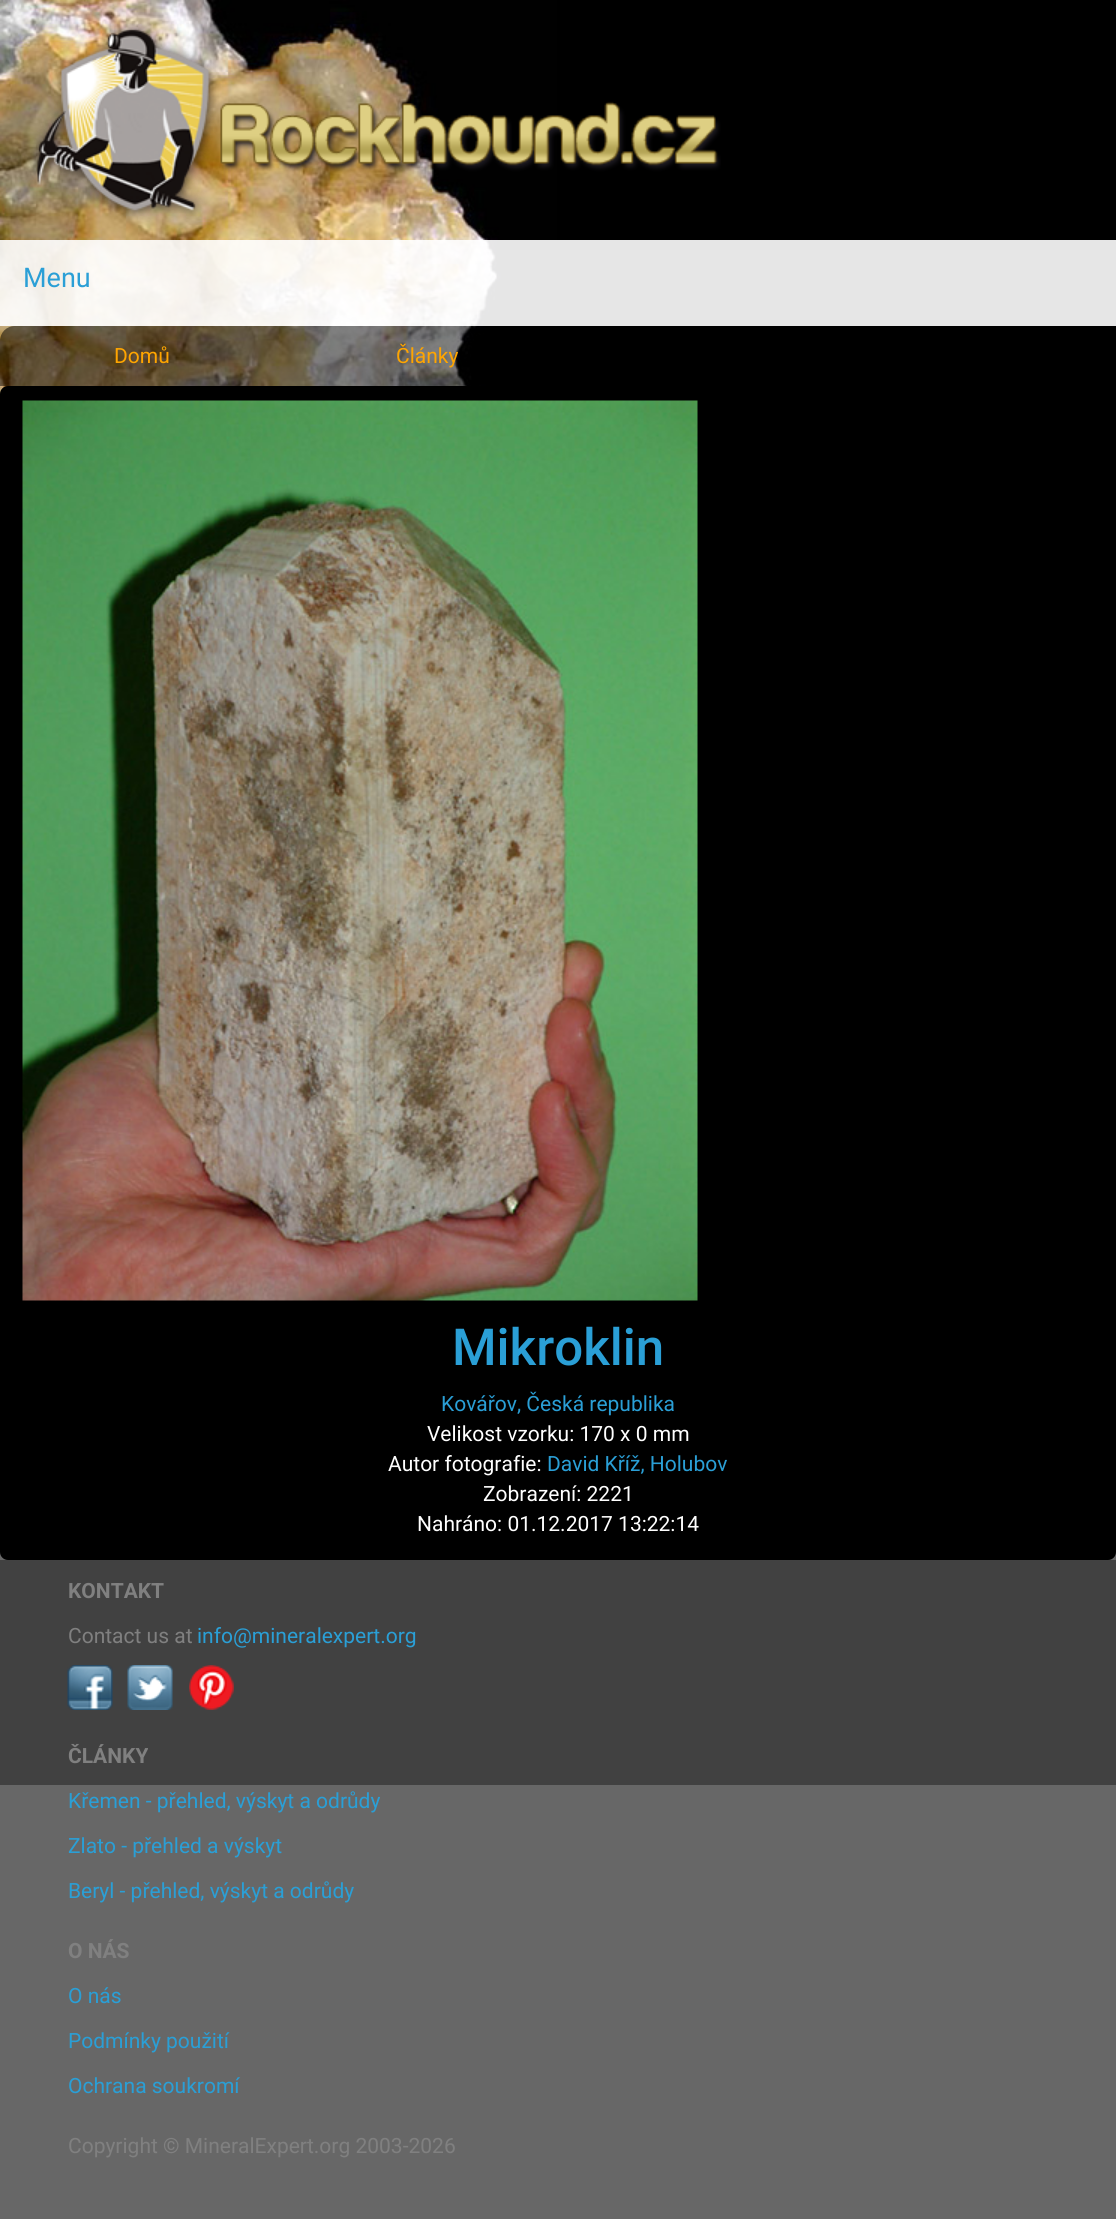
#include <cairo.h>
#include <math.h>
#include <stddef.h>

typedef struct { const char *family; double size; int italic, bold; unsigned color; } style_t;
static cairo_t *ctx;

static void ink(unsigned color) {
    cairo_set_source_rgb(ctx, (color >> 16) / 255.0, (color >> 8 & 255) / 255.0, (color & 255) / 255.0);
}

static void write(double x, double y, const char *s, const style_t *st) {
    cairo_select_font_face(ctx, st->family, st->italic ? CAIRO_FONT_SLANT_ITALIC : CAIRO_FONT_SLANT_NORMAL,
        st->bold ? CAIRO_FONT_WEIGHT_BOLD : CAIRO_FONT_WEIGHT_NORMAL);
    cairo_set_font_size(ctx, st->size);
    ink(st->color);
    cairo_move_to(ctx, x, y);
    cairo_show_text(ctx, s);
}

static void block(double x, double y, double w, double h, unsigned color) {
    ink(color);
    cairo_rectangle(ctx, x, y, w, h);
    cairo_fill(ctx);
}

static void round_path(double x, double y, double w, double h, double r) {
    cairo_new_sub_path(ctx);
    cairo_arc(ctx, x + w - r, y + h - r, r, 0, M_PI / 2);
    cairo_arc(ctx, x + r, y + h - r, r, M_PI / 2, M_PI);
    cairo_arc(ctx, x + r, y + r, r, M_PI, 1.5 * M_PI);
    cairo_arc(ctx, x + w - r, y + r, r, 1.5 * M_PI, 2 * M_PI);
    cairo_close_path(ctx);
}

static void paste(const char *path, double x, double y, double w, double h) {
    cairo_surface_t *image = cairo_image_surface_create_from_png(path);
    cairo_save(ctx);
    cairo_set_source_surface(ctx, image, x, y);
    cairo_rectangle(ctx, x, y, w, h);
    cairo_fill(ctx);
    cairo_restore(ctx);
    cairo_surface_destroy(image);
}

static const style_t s1 = {"Roboto", 27, 0, 0, 0x2a9fd6};
static const style_t s2 = {"Roboto", 21, 0, 0, 0xffa500};
static const style_t s3 = {"Roboto Medium", 51, 0, 0, 0x2a9fd6};
static const style_t s4 = {"Roboto", 21, 0, 0, 0x2a9fd6};
static const style_t s5 = {"Roboto", 21, 0, 0, 0xffffff};
static const style_t s6 = {"Roboto", 21, 0, 1, 0x808080};
static const style_t s7 = {"Roboto", 21, 0, 0, 0x808080};

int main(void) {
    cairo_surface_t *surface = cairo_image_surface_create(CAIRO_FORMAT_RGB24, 1116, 2219);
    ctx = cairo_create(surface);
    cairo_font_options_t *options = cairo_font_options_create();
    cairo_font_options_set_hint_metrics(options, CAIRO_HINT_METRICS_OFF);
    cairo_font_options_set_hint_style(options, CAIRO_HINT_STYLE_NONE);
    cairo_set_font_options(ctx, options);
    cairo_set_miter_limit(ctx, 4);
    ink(0x676767);
    cairo_paint(ctx);
    paste("pic1.png", 0, 0, 1116, 394);
    paste("pic2.png", 30, 23, 691, 197);
    cairo_set_source_rgba(ctx, 1, 1, 1, 0.9);
    cairo_rectangle(ctx, 0, 240, 1116, 86);
    cairo_fill(ctx);
    write(23, 287, "Menu", &s1);
    cairo_set_source_rgba(ctx, 0, 0, 0, 0.5);
    cairo_new_path(ctx);
    cairo_move_to(ctx, 15, 326);
    cairo_line_to(ctx, 285, 326);
    cairo_line_to(ctx, 285, 386);
    cairo_line_to(ctx, 0, 386);
    cairo_line_to(ctx, 0, 341);
    cairo_curve_to(ctx, 0, 332.5, 6.5, 326, 15, 326);
    cairo_close_path(ctx);
    cairo_fill(ctx);
    write(114, 363, "Domů", &s2);
    cairo_set_source_rgba(ctx, 0, 0, 0, 0.5);
    cairo_new_path(ctx);
    cairo_move_to(ctx, 285, 326);
    cairo_line_to(ctx, 555, 326);
    cairo_curve_to(ctx, 563.5, 326, 570, 332.5, 570, 341);
    cairo_line_to(ctx, 570, 386);
    cairo_line_to(ctx, 285, 386);
    cairo_close_path(ctx);
    cairo_fill(ctx);
    write(396, 363, "Články", &s2);
    ink(0x000000);
    round_path(0, 386, 1116, 1174, 8);
    cairo_fill(ctx);
    paste("pic3.png", 22, 400, 676, 901);
    write(452, 1365, "Mikroklin", &s3);
    write(441, 1411, "Kovářov, Česká republika", &s4);
    write(427, 1441, "Velikost vzorku: 170 x 0 mm", &s5);
    write(388, 1471, "Autor fotografie:", &s5);
    write(547, 1471, "David Kříž, Holubov", &s4);
    write(483, 1501, "Zobrazení: 2221", &s5);
    write(417, 1531, "Nahráno: 01.12.2017 13:22:14", &s5);
    block(0, 1560, 1116, 225, 0x414141);
    write(68, 1598, "KONTAKT", &s6);
    write(68, 1643, "Contact us at", &s7);
    write(197, 1643, "info@mineralexpert.org", &s4);
    paste("pic4.png", 67, 1665, 46, 45);
    paste("pic5.png", 127, 1665, 46, 45);
    paste("pic6.png", 189, 1665, 45, 45);
    write(68, 1763, "ČLÁNKY", &s6);
    write(68, 1808, "Křemen - přehled, výskyt a odrůdy", &s4);
    write(68, 1853, "Zlato - přehled a výskyt", &s4);
    write(68, 1898, "Beryl - přehled, výskyt a odrůdy", &s4);
    write(68, 1958, "O NÁS", &s6);
    write(68, 2003, "O nás", &s4);
    write(68, 2048, "Podmínky použití", &s4);
    write(68, 2093, "Ochrana soukromí", &s4);
    write(68, 2153, "Copyright © MineralExpert.org 2003-2026", &s7);
    cairo_surface_write_to_png(surface, "screenshot.png");
    cairo_font_options_destroy(options);
    cairo_destroy(ctx);
    cairo_surface_destroy(surface);
    return 0;
}
